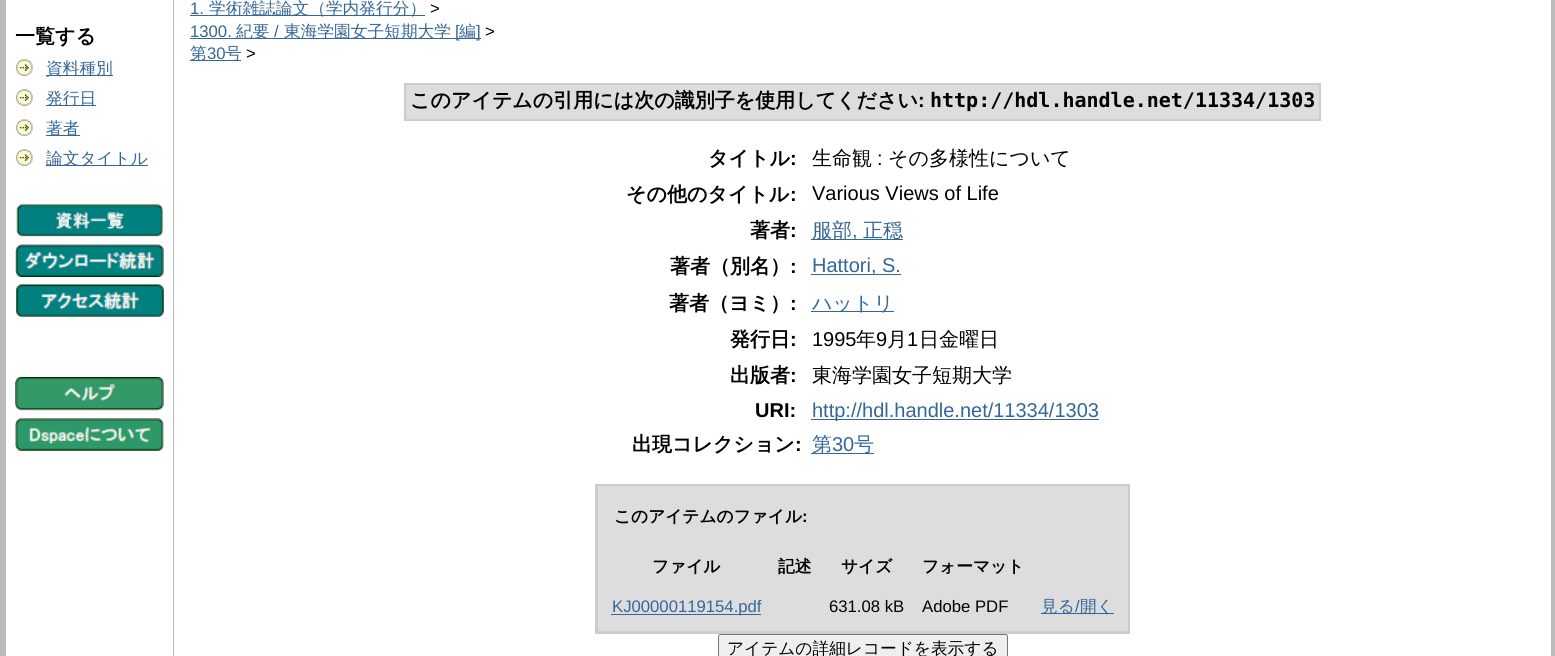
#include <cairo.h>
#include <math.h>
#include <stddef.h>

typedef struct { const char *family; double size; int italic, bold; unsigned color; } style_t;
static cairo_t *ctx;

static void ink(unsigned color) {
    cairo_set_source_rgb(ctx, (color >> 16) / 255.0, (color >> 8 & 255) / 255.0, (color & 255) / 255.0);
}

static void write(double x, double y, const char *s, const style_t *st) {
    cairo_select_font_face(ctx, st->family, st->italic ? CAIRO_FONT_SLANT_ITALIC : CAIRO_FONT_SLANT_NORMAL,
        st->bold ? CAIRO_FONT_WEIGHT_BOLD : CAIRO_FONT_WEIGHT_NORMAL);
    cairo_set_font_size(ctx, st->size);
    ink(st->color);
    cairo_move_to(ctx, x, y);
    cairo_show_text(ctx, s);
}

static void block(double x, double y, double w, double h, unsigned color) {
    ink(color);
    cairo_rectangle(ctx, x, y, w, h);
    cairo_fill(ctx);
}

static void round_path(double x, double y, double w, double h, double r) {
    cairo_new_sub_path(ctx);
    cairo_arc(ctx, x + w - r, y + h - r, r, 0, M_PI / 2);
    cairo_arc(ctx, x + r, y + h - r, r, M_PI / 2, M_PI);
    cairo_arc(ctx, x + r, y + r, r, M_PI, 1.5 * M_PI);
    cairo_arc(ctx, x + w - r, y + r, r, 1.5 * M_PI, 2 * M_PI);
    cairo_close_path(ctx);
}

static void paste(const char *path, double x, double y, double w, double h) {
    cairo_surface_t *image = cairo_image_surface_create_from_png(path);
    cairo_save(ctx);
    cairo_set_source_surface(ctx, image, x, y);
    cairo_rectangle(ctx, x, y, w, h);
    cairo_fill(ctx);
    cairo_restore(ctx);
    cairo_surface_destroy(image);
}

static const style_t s1 = {"WenQuanYi Zen Hei", 20, 0, 1, 0x000000};
static const style_t s2 = {"WenQuanYi Zen Hei Medium", 16.7, 0, 0, 0x336699};
static const style_t s3 = {"Liberation Sans", 16.7, 0, 0, 0x336699};
static const style_t s4 = {"Liberation Sans", 16.7, 0, 0, 0x000000};
static const style_t s5 = {"Liberation Sans", 20, 0, 1, 0x000000};
static const style_t s6 = {"DejaVu Sans Mono", 20, 0, 1, 0x000000};
static const style_t s7 = {"WenQuanYi Zen Hei Medium", 20, 0, 0, 0x000000};
static const style_t s8 = {"Liberation Sans", 20, 0, 0, 0x000000};
static const style_t s9 = {"WenQuanYi Zen Hei Medium", 20, 0, 0, 0x336699};
static const style_t s10 = {"Liberation Sans", 20, 0, 0, 0x336699};
static const style_t s11 = {"WenQuanYi Zen Hei", 16.7, 0, 1, 0x000000};
static const style_t s12 = {"Liberation Sans", 16.7, 0, 1, 0x000000};
static const style_t s13 = {"WenQuanYi Zen Hei Medium", 16.7, 0, 0, 0x000000};

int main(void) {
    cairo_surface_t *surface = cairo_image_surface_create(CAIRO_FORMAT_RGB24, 1555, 656);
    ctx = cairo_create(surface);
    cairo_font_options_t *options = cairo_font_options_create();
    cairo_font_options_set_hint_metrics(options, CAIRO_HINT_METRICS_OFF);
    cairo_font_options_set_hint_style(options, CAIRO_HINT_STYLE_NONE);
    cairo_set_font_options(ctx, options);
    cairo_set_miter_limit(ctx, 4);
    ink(0xbbbbbb);
    cairo_paint(ctx);
    block(6, 0, 167, 656, 0xffffff);
    write(15, 43, "一覧する", &s1);
    paste("pic1.png", 16, 59, 17, 17);
    block(46, 75, 67, 1, 0x336699);
    write(46, 74, "資料種別", &s2);
    paste("pic1.png", 16, 89, 17, 17);
    block(46, 105, 50, 1, 0x336699);
    write(46, 104, "発行日", &s2);
    paste("pic2.png", 16, 119, 17, 17);
    block(46, 135, 34, 1, 0x336699);
    write(46, 134, "著者", &s2);
    paste("pic1.png", 16, 149, 17, 17);
    block(46, 165, 102, 1, 0x336699);
    write(46, 164, "論文タイトル", &s2);
    paste("pic3.png", 16, 203, 148, 34);
    paste("pic4.png", 15, 244, 149, 33);
    paste("pic5.png", 16, 284, 148, 33);
    paste("pic6.png", 15, 377, 149, 34);
    paste("pic7.png", 15, 418, 149, 33);
    block(174, 0, 1377, 656, 0xffffff);
    write(190, 14, "1.", &s3);
    block(190, 15, 235, 1, 0x336699);
    write(209, 14, "学術雑誌論文（学内発行分）", &s2);
    write(430, 14, ">", &s4);
    write(190, 37, "1300.", &s3);
    block(190, 38, 291, 1, 0x336699);
    write(236, 37, "紀要", &s2);
    write(274, 37, "/", &s3);
    write(284, 37, "東海学園女子短期大学", &s2);
    write(455, 37, "[", &s3);
    write(459, 37, "編", &s2);
    write(476, 37, "]", &s3);
    write(485, 37, ">", &s4);
    block(190, 60, 51, 1, 0x336699);
    write(190, 59, "第", &s2);
    write(207, 59, "30", &s3);
    write(225, 59, "号", &s2);
    write(246, 59, ">", &s4);
    block(404, 83, 917, 38, 0xcccccc);
    block(406, 85, 913, 34, 0xdddddd);
    write(410, 107, "このアイテムの引用には次の識別子を使用してください", &s1);
    write(918, 107, ":", &s5);
    write(930, 107, "http://hdl.handle.net/11334/1303", &s6);
    write(708, 165, "タイトル", &s1);
    write(790, 165, ":", &s5);
    write(812, 165, "生命観", &s7);
    write(877, 165, ":", &s8);
    write(888, 165, "その多様性について", &s7);
    write(626, 201, "その他のタイトル", &s1);
    write(790, 201, ":", &s5);
    write(812, 200, "Various Views of Life", &s8);
    write(750, 237, "著者", &s1);
    write(790, 237, ":", &s5);
    block(811, 239, 92, 1, 0x336699);
    write(812, 237, "服部", &s9);
    write(852, 237, ",", &s10);
    write(863, 237, "正穏", &s9);
    write(670, 273, "著者（別名）", &s1);
    write(790, 273, ":", &s5);
    block(811, 274, 90, 1, 0x336699);
    write(812, 272, "Hattori, S.", &s10);
    write(669, 310, "著者（ヨミ）", &s1);
    write(790, 310, ":", &s5);
    block(811, 311, 83, 1, 0x336699);
    write(812, 310, "ハットリ", &s9);
    write(730, 346, "発行日", &s1);
    write(790, 346, ":", &s5);
    write(812, 346, "1995", &s8);
    write(856, 346, "年", &s7);
    write(876, 346, "9", &s8);
    write(887, 346, "月", &s7);
    write(907, 346, "1", &s8);
    write(919, 346, "日金曜日", &s7);
    write(730, 382, "出版者", &s1);
    write(790, 382, ":", &s5);
    write(812, 382, "東海学園女子短期大学", &s7);
    write(755, 417, "URI:", &s5);
    block(811, 419, 288, 1, 0x336699);
    write(812, 417, "http://hdl.handle.net/11334/1303", &s10);
    write(632, 451, "出現コレクション", &s1);
    write(795, 451, ":", &s5);
    block(811, 453, 63, 1, 0x336699);
    write(812, 451, "第", &s9);
    write(832, 451, "30", &s10);
    write(854, 451, "号", &s9);
    block(595, 484, 535, 150, 0xcccccc);
    block(598, 486, 530, 145, 0xdddddd);
    write(614, 522, "このアイテムのファイル", &s11);
    write(802, 522, ":", &s12);
    write(652, 572, "ファイル", &s11);
    write(778, 572, "記述", &s11);
    write(841, 572, "サイズ", &s11);
    write(922, 572, "フォーマット", &s11);
    block(611, 614, 150, 1, 0x336699);
    write(612, 612, "KJ00000119154.pdf", &s3);
    write(829, 612, "631.08 kB", &s4);
    write(922, 612, "Adobe PDF", &s4);
    block(1041, 613, 73, 1, 0x336699);
    write(1041, 612, "見る", &s2);
    write(1075, 612, "/", &s3);
    write(1080, 612, "開く", &s2);
    ink(0xefefef);
    round_path(718.5, 634.5, 289, 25, 2);
    cairo_fill_preserve(ctx);
    ink(0x767676);
    cairo_set_line_width(ctx, 1);
    cairo_stroke(ctx);
    write(727, 654, "アイテムの詳細レコードを表示する", &s13);
    cairo_surface_write_to_png(surface, "screenshot.png");
    cairo_font_options_destroy(options);
    cairo_destroy(ctx);
    cairo_surface_destroy(surface);
    return 0;
}
